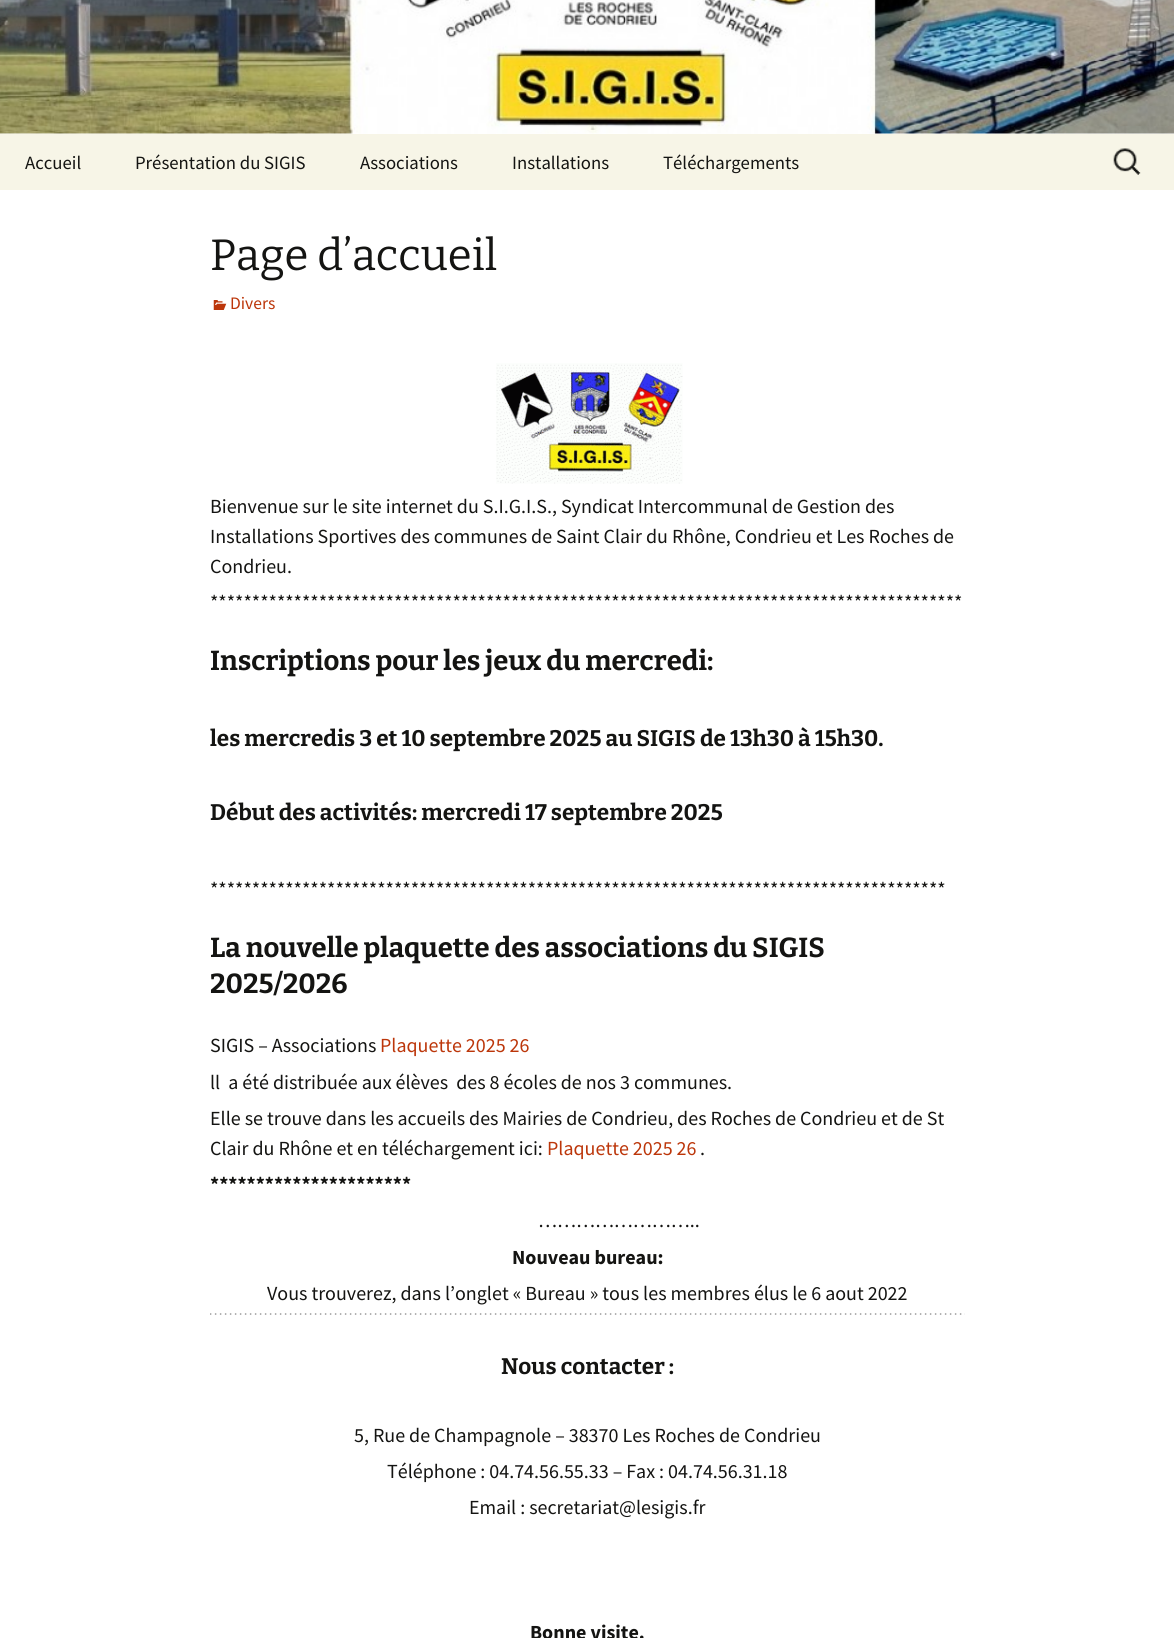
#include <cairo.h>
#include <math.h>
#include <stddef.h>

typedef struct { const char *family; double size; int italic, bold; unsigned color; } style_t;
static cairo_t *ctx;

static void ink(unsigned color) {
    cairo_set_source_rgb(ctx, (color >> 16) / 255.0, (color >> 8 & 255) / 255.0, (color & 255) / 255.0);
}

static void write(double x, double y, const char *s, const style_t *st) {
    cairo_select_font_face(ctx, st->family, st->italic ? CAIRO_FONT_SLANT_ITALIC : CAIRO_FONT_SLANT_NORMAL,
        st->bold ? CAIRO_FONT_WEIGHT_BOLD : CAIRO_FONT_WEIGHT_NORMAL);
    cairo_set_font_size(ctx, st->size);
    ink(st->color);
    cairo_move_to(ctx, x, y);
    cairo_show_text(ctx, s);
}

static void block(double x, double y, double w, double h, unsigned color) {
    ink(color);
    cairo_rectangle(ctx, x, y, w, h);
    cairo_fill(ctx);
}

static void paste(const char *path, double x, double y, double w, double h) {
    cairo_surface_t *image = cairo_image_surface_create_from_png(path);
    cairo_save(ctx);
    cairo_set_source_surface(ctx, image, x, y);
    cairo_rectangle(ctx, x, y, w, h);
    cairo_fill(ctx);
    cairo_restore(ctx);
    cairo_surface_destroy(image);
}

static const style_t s1 = {"Source Sans Pro", 18.75, 0, 0, 0x141412};
static const style_t s2 = {"Bitter Thin", 43.75, 0, 0, 0x141412};
static const style_t s3 = {"Source Sans Pro", 17.5, 0, 0, 0xbc360a};
static const style_t s4 = {"Source Sans Pro", 20, 0, 0, 0x141412};
static const style_t s5 = {"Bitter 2 Thin", 27.5, 0, 0, 0x141412};
static const style_t s6 = {"Bitter 2 Thin", 22.5, 0, 0, 0x141412};
static const style_t s7 = {"Source Sans Pro", 20, 0, 0, 0xbc360a};
static const style_t s8 = {"Source Sans Pro", 20, 0, 1, 0x141412};

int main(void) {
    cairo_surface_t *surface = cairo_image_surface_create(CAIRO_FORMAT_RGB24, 1174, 1638);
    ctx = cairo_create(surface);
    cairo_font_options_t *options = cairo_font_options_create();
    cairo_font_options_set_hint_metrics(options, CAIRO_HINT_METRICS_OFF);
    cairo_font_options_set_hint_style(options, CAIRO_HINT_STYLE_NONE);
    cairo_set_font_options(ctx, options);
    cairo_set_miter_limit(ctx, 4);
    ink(0xffffff);
    cairo_paint(ctx);
    paste("pic1.png", 0, 0, 1174, 134);
    block(0, 134, 1174, 56, 0xf7f5e7);
    write(25, 169, "Accueil", &s1);
    write(135, 169, "Présentation du SIGIS", &s1);
    write(360, 169, "Associations", &s1);
    write(512, 169, "Installations", &s1);
    write(663, 169, "Téléchargements", &s1);
    paste("pic2.png", 1113, 148, 28, 27);
    write(210, 270, "Page d’accueil", &s2);
    paste("pic3.png", 213, 300, 14, 10);
    write(230, 309, "Divers", &s3);
    paste("pic4.png", 496, 363, 187, 121);
    write(210, 513, "Bienvenue sur le site internet du S.I.G.I.S., Syndicat Intercommunal de Gestion des", &s4);
    write(210, 543, "Installations Sportives des communes de Saint Clair du Rhône, Condrieu et Les Roches de", &s4);
    write(210, 573, "Condrieu.", &s4);
    write(210, 609, "******************************************************************************************", &s4);
    write(210, 670, "Inscriptions pour les jeux du mercredi:", &s5);
    write(210, 746, "les mercredis 3 et 10 septembre 2025 au SIGIS de 13h30 à 15h30.", &s6);
    write(210, 820, "Début des activités: mercredi 17 septembre 2025", &s6);
    write(210, 896, "****************************************************************************************", &s4);
    write(210, 957, "La nouvelle plaquette des associations du SIGIS", &s5);
    write(210, 993, "2025/2026", &s5);
    write(210, 1052, "SIGIS – Associations", &s4);
    write(380, 1052, "Plaquette 2025 26", &s7);
    write(210, 1089, "ll  a été distribuée aux élèves  des 8 écoles de nos 3 communes.", &s4);
    write(210, 1125, "Elle se trouve dans les accueils des Mairies de Condrieu, des Roches de Condrieu et de St", &s4);
    write(210, 1155, "Clair du Rhône et en téléchargement ici:", &s4);
    write(547, 1155, "Plaquette 2025 26", &s7);
    write(700, 1155, ".", &s4);
    write(210, 1191, "**********************", &s8);
    write(538, 1227, "……………………..", &s4);
    write(512, 1264, "Nouveau bureau:", &s8);
    write(267, 1300, "Vous trouverez, dans l’onglet « Bureau » tous les membres élus le 6 aout 2022", &s4);
    paste("pic5.png", 210, 1313, 755, 2);
    write(501, 1374, "Nous contacter :", &s6);
    write(354, 1442, "5, Rue de Champagnole – 38370 Les Roches de Condrieu", &s4);
    write(387, 1478, "Téléphone : 04.74.56.55.33 – Fax : 04.74.56.31.18", &s4);
    write(469, 1514, "Email : secretariat@lesigis.fr", &s4);
    write(530, 1639, "Bonne visite.", &s8);
    cairo_surface_write_to_png(surface, "screenshot.png");
    cairo_font_options_destroy(options);
    cairo_destroy(ctx);
    cairo_surface_destroy(surface);
    return 0;
}
